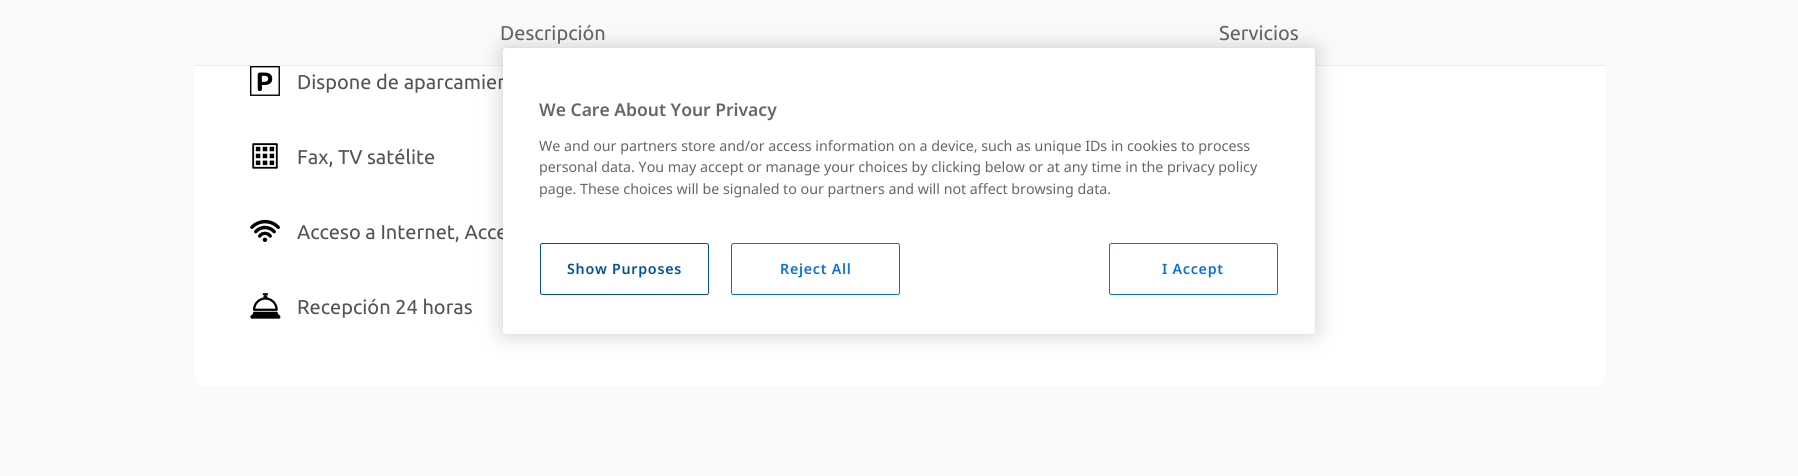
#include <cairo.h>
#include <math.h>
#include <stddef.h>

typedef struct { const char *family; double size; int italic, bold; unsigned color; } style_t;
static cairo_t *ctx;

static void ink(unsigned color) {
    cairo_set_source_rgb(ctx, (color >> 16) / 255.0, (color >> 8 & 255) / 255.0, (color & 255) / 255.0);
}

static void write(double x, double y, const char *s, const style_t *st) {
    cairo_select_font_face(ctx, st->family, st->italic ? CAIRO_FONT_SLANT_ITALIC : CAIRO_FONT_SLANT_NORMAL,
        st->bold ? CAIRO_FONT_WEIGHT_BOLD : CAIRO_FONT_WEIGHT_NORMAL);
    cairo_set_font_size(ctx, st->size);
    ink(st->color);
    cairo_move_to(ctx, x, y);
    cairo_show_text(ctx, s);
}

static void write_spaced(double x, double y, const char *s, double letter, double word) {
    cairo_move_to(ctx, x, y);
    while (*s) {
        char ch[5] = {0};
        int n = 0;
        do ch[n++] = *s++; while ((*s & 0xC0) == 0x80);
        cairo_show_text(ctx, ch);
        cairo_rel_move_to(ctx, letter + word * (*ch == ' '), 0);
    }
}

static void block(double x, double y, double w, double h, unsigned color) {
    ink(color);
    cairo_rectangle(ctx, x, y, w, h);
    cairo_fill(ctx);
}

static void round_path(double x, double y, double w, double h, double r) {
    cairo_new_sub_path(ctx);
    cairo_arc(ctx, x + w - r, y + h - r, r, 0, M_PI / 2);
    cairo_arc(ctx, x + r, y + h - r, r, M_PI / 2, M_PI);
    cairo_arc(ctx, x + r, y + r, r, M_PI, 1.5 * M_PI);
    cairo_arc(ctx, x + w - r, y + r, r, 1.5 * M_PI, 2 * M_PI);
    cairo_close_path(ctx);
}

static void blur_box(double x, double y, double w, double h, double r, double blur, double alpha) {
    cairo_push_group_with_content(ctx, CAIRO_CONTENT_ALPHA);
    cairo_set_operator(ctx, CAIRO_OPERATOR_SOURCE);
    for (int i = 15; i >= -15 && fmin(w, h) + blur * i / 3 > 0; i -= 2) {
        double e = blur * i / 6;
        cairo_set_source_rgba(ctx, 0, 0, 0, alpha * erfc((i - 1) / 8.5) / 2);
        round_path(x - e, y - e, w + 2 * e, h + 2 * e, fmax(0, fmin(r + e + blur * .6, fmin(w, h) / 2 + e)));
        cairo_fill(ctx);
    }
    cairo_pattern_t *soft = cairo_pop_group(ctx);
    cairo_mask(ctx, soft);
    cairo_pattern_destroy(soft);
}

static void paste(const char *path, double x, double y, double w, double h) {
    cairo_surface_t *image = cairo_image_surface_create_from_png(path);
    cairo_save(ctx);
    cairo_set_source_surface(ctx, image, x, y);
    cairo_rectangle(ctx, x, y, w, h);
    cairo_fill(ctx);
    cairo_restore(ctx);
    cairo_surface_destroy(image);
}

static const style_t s1 = {"Ubuntu", 20, 0, 0, 0x666666};
static const style_t s2 = {"Ubuntu", 20, 0, 0, 0x545454};
static const style_t s3 = {"Noto Sans SemiBold", 17.5, 0, 0, 0x666666};
static const style_t s4 = {"Noto Sans", 14.23, 0, 0, 0x666666};

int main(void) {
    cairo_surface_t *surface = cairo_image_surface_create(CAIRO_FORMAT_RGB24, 1798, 476);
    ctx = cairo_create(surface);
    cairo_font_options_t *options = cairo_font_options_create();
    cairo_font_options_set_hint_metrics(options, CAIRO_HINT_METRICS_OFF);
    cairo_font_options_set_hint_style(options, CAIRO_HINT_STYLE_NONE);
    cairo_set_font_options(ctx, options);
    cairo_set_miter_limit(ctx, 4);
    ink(0xfafafa);
    cairo_paint(ctx);
    ink(0xffffff);
    round_path(195, 1, 1410, 385, 10);
    cairo_fill(ctx);
    block(195, 1, 1410, 64, 0xfafafa);
    block(195, 65, 1410, 1, 0xececec);
    write(500, 40, "Descripción", &s1);
    write(1219, 40, "Servicios", &s1);
    paste("pic1.png", 250, 66, 30, 30);
    write(297, 89, "Dispone de aparcamien", &s2);
    paste("pic2.png", 252, 143, 26, 26);
    write(297, 164, "Fax, TV satélite", &s2);
    paste("pic3.png", 250, 219, 30, 23);
    write(297, 239, "Acceso a Internet, Acce", &s2);
    paste("pic4.png", 250, 293, 31, 26);
    write(297, 314, "Recepción 24 horas", &s2);
    ink(0x000000);
    blur_box(503, 48, 812, 286, 3, 11, 0.2);
    ink(0xffffff);
    round_path(503, 48, 812, 286, 3);
    cairo_fill(ctx);
    write(539, 116, "We Care About Your Privacy", &s3);
    write(539, 151, "We and our partners store and/or access information on a device, such as unique IDs in cookies to process", &s4);
    write(539, 172, "personal data. You may accept or manage your choices by clicking below or at any time in the privacy policy", &s4);
    write(539, 194, "page. These choices will be signaled to our partners and will not affect browsing data.", &s4);
    round_path(540.5, 243.5, 168, 51, 2);
    ink(0x00529c);
    cairo_set_line_width(ctx, 1);
    cairo_stroke(ctx);
    cairo_select_font_face(ctx, "Noto Sans SemiBold", CAIRO_FONT_SLANT_NORMAL, CAIRO_FONT_WEIGHT_NORMAL);
    write_spaced(567, 274, "Show Purposes", 0.75, 0);
    round_path(731.5, 243.5, 168, 51, 2);
    ink(0x0970e6);
    cairo_stroke(ctx);
    write_spaced(780, 274, "Reject All", 0.75, 0);
    round_path(1109.5, 243.5, 168, 51, 2);
    cairo_stroke(ctx);
    write_spaced(1162, 274, "I Accept", 0.75, 0);
    cairo_surface_write_to_png(surface, "screenshot.png");
    cairo_font_options_destroy(options);
    cairo_destroy(ctx);
    cairo_surface_destroy(surface);
    return 0;
}
